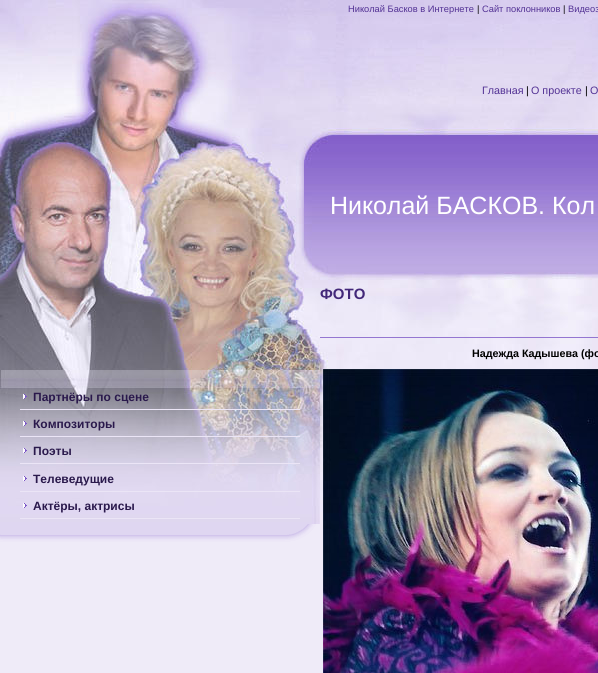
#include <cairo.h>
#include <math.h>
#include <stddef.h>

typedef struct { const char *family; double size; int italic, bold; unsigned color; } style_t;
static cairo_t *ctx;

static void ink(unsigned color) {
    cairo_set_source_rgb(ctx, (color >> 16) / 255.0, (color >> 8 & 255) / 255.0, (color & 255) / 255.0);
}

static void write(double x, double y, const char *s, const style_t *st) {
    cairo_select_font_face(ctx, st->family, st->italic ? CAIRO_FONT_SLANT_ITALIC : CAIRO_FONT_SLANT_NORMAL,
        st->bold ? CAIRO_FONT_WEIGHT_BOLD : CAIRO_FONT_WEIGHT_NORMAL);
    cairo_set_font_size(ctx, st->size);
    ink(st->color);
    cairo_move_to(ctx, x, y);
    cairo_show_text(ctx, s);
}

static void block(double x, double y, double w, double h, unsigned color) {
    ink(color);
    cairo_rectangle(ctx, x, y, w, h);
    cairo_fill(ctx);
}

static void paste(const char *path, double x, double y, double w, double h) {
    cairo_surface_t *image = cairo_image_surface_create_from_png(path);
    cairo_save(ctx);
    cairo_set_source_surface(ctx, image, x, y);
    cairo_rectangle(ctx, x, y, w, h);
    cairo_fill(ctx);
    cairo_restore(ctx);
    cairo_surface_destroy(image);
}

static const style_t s1 = {"Liberation Sans", 9.3, 0, 0, 0x523194};
static const style_t s2 = {"Liberation Sans", 9.3, 0, 0, 0x000000};
static const style_t s3 = {"Liberation Sans", 10.75, 0, 0, 0x523194};
static const style_t s4 = {"Liberation Sans", 10.75, 0, 0, 0x000000};
static const style_t s5 = {"Liberation Sans", 25, 0, 0, 0xffffff};
static const style_t s6 = {"Liberation Sans", 15, 0, 1, 0x432879};
static const style_t s7 = {"Liberation Sans", 10.75, 0, 1, 0x000000};
static const style_t s8 = {"Liberation Sans", 12, 0, 1, 0x2a194c};

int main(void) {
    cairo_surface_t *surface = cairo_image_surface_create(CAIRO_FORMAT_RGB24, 598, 673);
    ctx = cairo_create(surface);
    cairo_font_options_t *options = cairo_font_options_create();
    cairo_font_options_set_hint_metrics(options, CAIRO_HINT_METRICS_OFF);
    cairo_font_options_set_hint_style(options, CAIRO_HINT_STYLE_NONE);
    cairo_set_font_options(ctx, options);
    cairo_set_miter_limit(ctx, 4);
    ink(0xefebf8);
    cairo_paint(ctx);
    paste("pic1.png", 0, 0, 598, 512);
    write(348, 12, "Николай Басков в Интернете", &s1);
    write(477, 12, "|", &s2);
    write(482, 12, "Сайт поклонников", &s1);
    write(563, 12, "|", &s2);
    write(568, 12, "Видеоз", &s1);
    write(482, 94, "Главная", &s3);
    write(526, 94, "|", &s4);
    write(531, 94, "О проекте", &s3);
    write(585, 94, "|", &s4);
    write(590, 94, "О", &s3);
    write(330, 214, "Николай БАСКОВ. Кол", &s5);
    write(320, 299, "ФОТО", &s6);
    block(320, 337, 278, 1, 0x9476d1);
    write(472, 357, "Надежда Кадышева (фо", &s7);
    paste("pic2.png", 323, 369, 275, 304);
    paste("pic3.png", 0, 524, 320, 22);
    paste("pic4.png", 0, 370, 320, 154);
    paste("pic5.png", 23, 394, 4, 5);
    block(20, 409, 280, 1, 0xebe5f6);
    write(33, 401, "Партнёры по сцене", &s8);
    paste("pic6.png", 23, 421, 4, 5);
    block(20, 436, 280, 1, 0xebe5f6);
    write(33, 428, "Композиторы", &s8);
    paste("pic7.png", 23, 448, 4, 5);
    block(20, 463, 280, 1, 0xebe5f6);
    write(33, 455, "Поэты", &s8);
    paste("pic8.png", 23, 476, 4, 5);
    block(20, 491, 280, 1, 0xebe5f6);
    write(33, 483, "Телеведущие", &s8);
    paste("pic9.png", 23, 503, 4, 5);
    block(20, 518, 280, 1, 0xebe5f6);
    write(33, 510, "Актёры, актрисы", &s8);
    cairo_surface_write_to_png(surface, "screenshot.png");
    cairo_font_options_destroy(options);
    cairo_destroy(ctx);
    cairo_surface_destroy(surface);
    return 0;
}
